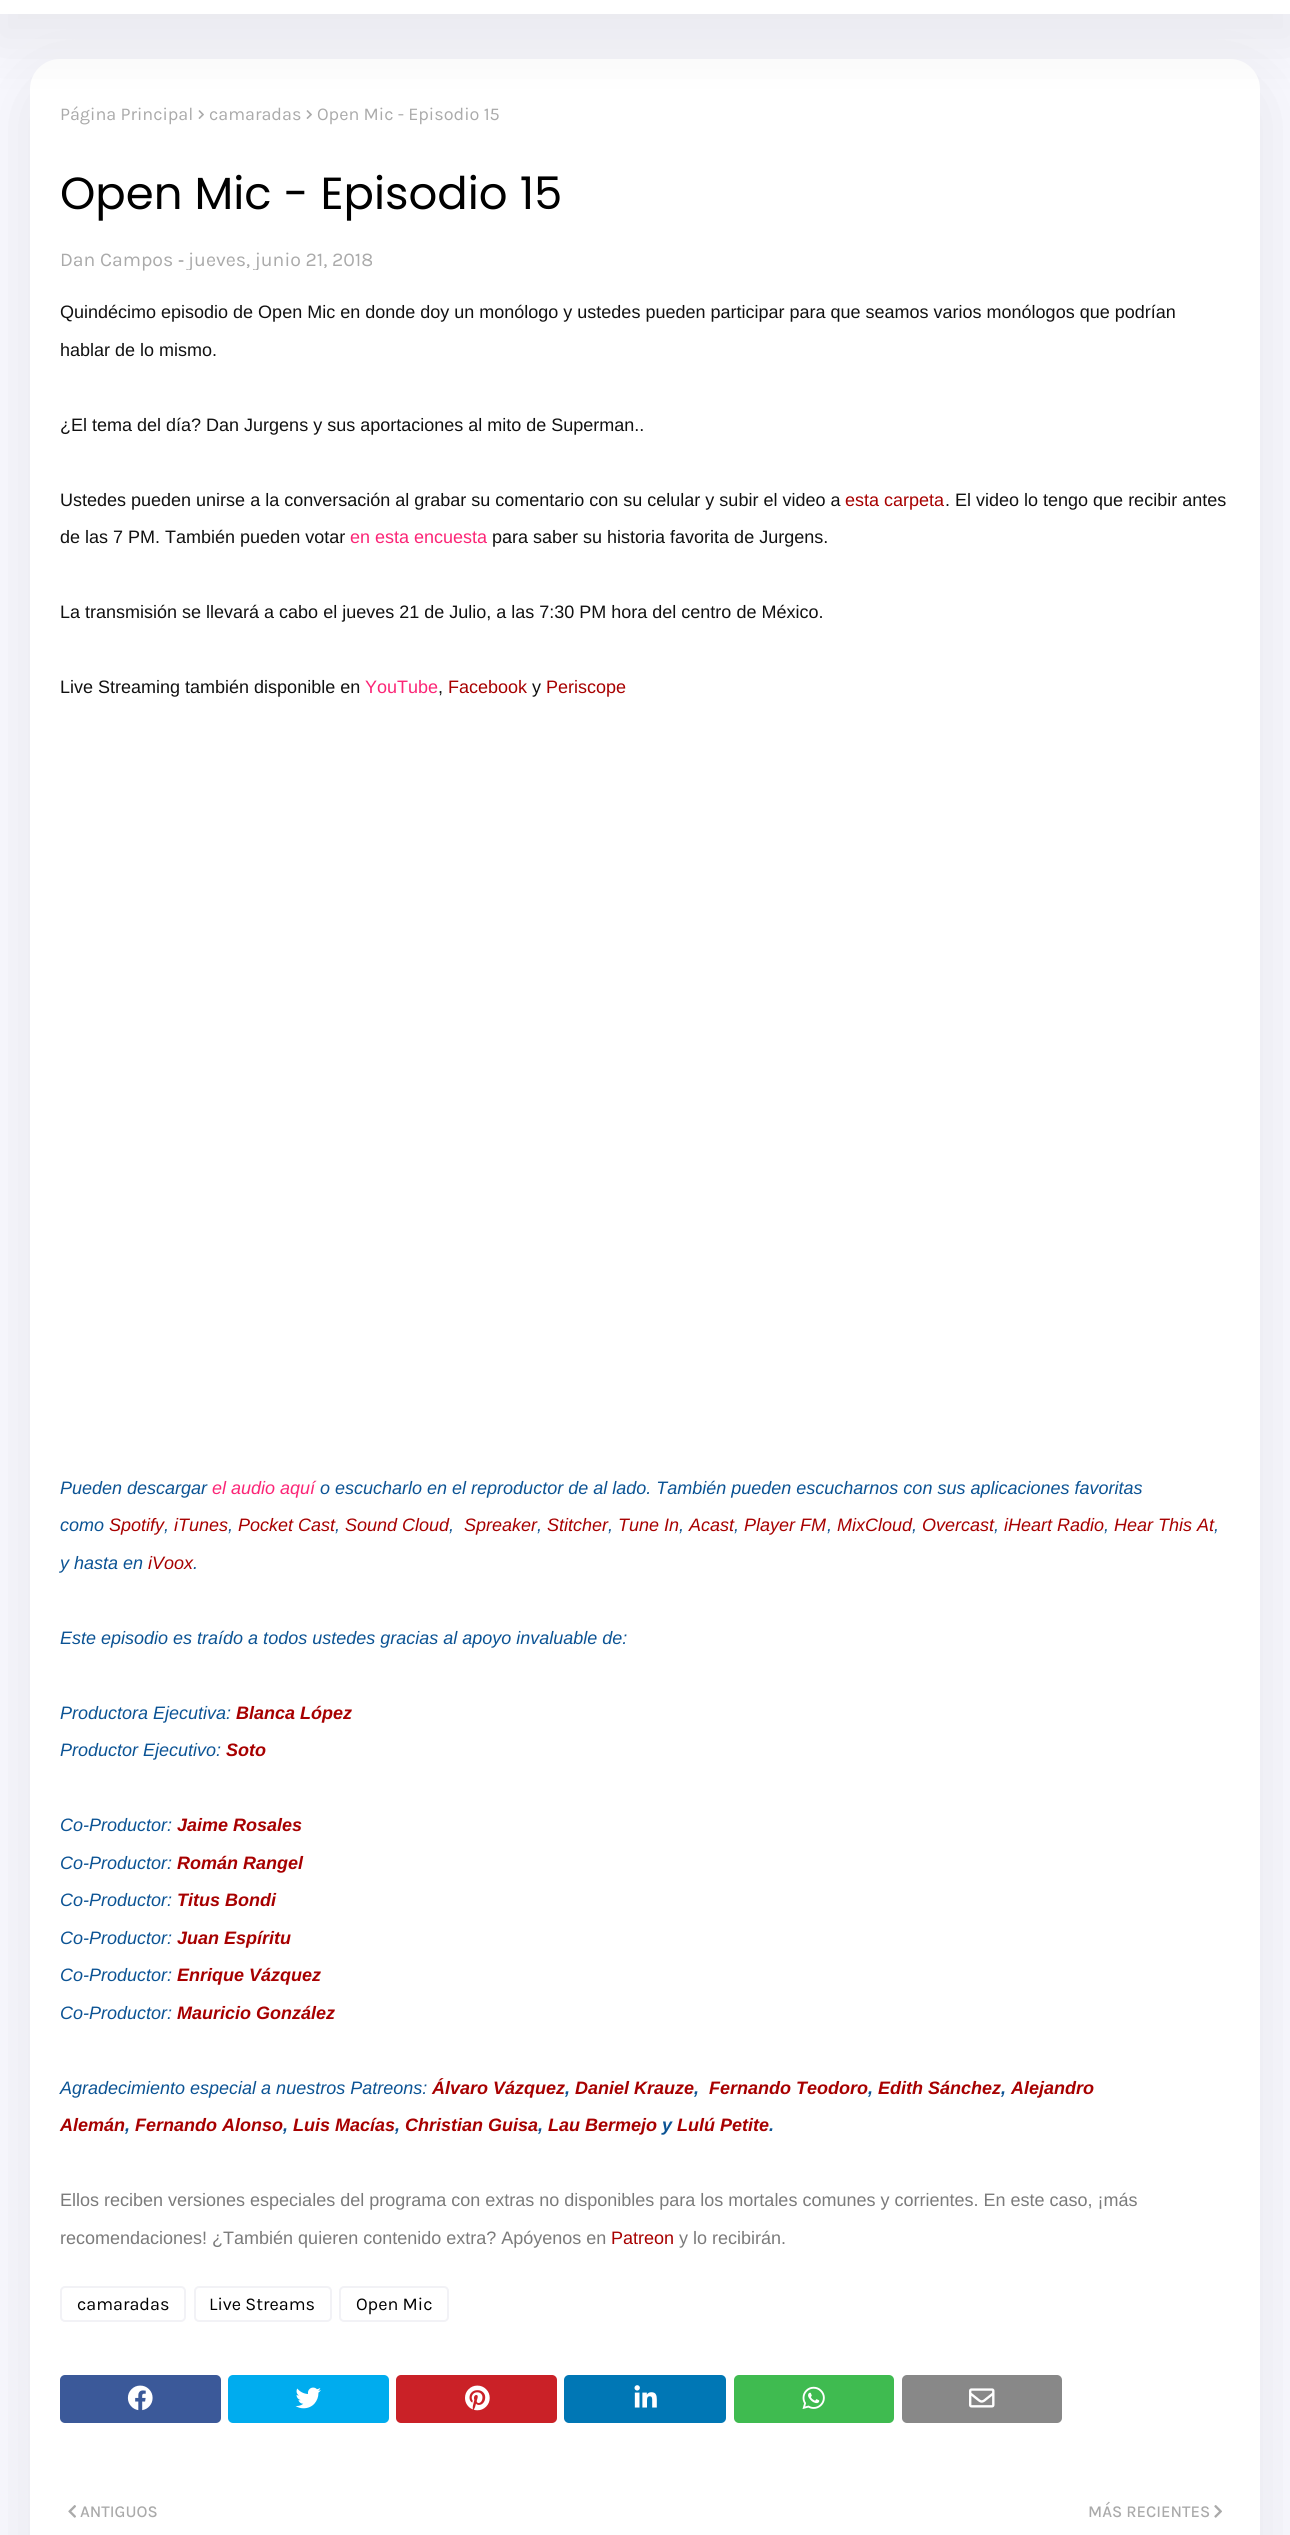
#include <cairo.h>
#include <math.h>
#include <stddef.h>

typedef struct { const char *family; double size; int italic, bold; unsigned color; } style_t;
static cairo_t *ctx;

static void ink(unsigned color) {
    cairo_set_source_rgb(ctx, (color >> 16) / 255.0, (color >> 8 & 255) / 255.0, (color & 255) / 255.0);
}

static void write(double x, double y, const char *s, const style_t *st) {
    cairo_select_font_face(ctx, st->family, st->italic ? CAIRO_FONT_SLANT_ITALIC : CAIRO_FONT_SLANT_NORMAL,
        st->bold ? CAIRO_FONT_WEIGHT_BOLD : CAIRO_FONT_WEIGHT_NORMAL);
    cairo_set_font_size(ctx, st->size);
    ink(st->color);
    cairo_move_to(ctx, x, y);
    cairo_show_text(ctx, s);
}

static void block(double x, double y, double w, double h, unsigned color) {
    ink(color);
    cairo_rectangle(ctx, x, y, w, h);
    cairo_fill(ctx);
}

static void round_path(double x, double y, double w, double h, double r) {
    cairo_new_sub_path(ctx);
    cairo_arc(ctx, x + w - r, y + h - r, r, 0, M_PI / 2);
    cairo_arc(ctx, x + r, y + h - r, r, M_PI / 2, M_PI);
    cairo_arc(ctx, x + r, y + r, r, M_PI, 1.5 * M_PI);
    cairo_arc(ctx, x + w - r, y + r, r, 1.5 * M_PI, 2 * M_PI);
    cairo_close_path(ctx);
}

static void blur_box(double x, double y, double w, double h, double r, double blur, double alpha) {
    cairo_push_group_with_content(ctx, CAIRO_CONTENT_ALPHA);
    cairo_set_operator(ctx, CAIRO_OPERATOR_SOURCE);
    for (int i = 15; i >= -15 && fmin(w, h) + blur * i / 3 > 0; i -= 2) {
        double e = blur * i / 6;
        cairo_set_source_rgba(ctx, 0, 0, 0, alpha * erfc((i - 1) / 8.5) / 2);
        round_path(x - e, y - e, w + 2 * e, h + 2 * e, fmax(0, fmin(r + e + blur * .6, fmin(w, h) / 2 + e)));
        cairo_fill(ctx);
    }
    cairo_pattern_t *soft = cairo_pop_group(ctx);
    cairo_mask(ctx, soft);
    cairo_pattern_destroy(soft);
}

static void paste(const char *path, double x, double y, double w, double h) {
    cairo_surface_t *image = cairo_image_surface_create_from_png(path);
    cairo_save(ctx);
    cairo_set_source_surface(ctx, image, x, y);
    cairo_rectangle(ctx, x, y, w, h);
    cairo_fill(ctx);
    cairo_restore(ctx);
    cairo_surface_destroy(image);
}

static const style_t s1 = {"Karla", 18, 0, 0, 0xaaaaaa};
static const style_t s2 = {"Poppins", 45, 0, 0, 0x000000};
static const style_t s3 = {"Karla", 19.5, 0, 0, 0xaaaaaa};
static const style_t s4 = {"Karla", 16.5, 0, 1, 0xaaaaaa};
static const style_t s5 = {"Liberation Sans", 18, 0, 0, 0x111111};
static const style_t s6 = {"Liberation Sans", 18, 0, 0, 0xa70000};
static const style_t s7 = {"Liberation Sans", 18, 0, 0, 0xfb2576};
static const style_t s8 = {"Liberation Sans", 18, 1, 0, 0x0b5394};
static const style_t s9 = {"Liberation Sans", 18, 1, 0, 0xfb2576};
static const style_t s10 = {"Liberation Sans", 18, 1, 0, 0xa70000};
static const style_t s11 = {"Liberation Sans", 18, 1, 1, 0xa70000};
static const style_t s12 = {"Liberation Sans", 18, 1, 1, 0x0b5394};
static const style_t s13 = {"Liberation Sans", 18, 0, 0, 0x7b7b7b};
static const style_t s14 = {"Karla", 18, 0, 0, 0x000000};
static const style_t s15 = {"Karla Medium", 16.5, 0, 0, 0xaaaaaa};

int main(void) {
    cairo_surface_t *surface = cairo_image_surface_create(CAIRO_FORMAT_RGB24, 1290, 2535);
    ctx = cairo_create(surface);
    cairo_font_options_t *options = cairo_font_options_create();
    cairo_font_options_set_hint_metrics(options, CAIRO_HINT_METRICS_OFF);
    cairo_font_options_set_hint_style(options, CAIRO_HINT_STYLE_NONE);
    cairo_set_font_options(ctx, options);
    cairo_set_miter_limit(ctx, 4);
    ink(0xf9f9ff);
    cairo_paint(ctx);
    ink(0x848485);
    blur_box(23, 74, 1245, 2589, 38, 30, 0.15);
    ink(0xffffff);
    round_path(30, 59, 1230, 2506, 30);
    cairo_fill(ctx);
    paste("pic1.png", 198, 110, 6, 9);
    paste("pic1.png", 306, 110, 6, 9);
    ink(0x848485);
    blur_box(-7, -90, 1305, 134, 0, 30, 0.15);
    block(0, 0, 1290, 14, 0xffffff);
    write(60, 120, "Página Principal", &s1);
    write(209, 120, "camaradas", &s1);
    write(317, 120, "Open Mic - Episodio 15", &s1);
    write(60, 209, "Open Mic - Episodio 15", &s2);
    write(60, 266, "Dan Campos", &s3);
    write(178, 266, "-", &s4);
    cairo_save(ctx);
    cairo_rectangle(ctx, 60, 248, 1170, 22);
    cairo_clip(ctx);
    write(188, 266, "jueves, junio 21, 2018", &s3);
    cairo_restore(ctx);
    write(60, 318, "Quindécimo episodio de Open Mic en donde doy un monólogo y ustedes pueden participar para que seamos varios monólogos que podrían", &s5);
    write(60, 356, "hablar de lo mismo.", &s5);
    write(60, 431, "¿El tema del día? Dan Jurgens y sus aportaciones al mito de Superman..", &s5);
    write(60, 506, "Ustedes pueden unirse a la conversación al grabar su comentario con su celular y subir el video a", &s5);
    write(845, 506, "esta carpeta", &s6);
    write(945, 506, ". El video lo tengo que recibir antes", &s5);
    write(60, 543, "de las 7 PM. También pueden votar", &s5);
    write(350, 543, "en esta encuesta", &s7);
    write(492, 543, "para saber su historia favorita de Jurgens.", &s5);
    write(60, 618, "La transmisión se llevará a cabo el jueves 21 de Julio, a las 7:30 PM hora del centro de México.", &s5);
    write(60, 693, "Live Streaming también disponible en", &s5);
    write(365, 693, "YouTube", &s7);
    write(438, 693, ",", &s5);
    write(448, 693, "Facebook", &s6);
    write(532, 693, "y", &s5);
    write(546, 693, "Periscope", &s6);
    write(60, 1494, "Pueden descargar", &s8);
    write(212, 1494, "el audio aquí", &s9);
    write(320, 1494, "o escucharlo en el reproductor de al lado. También pueden escucharnos con sus aplicaciones favoritas", &s8);
    write(60, 1531, "como", &s8);
    write(109, 1531, "Spotify", &s10);
    write(164, 1531, ",", &s8);
    write(174, 1531, "iTunes", &s10);
    write(228, 1531, ",", &s8);
    write(238, 1531, "Pocket Cast", &s10);
    write(335, 1531, ",", &s8);
    write(345, 1531, "Sound Cloud", &s10);
    write(449, 1531, ",", &s8);
    write(464, 1531, "Spreaker", &s10);
    write(537, 1531, ",", &s8);
    write(547, 1531, "Stitcher", &s10);
    write(608, 1531, ",", &s8);
    write(618, 1531, "Tune In", &s10);
    write(679, 1531, ",", &s8);
    write(689, 1531, "Acast", &s10);
    write(744, 1531, "Player FM", &s10);
    write(837, 1531, "MixCloud", &s10);
    write(922, 1531, "Overcast", &s10);
    write(1004, 1531, "iHeart Radio", &s10);
    write(1114, 1531, "Hear This At", &s10);
    write(734, 1531, ",", &s8);
    write(827, 1531, ",", &s8);
    write(912, 1531, ",", &s8);
    write(994, 1531, ",", &s8);
    write(1104, 1531, ",", &s8);
    write(1214, 1531, ",", &s8);
    write(60, 1569, "y hasta en", &s8);
    write(148, 1569, "iVoox", &s10);
    write(193, 1569, ".", &s8);
    write(60, 1644, "Este episodio es traído a todos ustedes gracias al apoyo invaluable de:", &s8);
    write(60, 1719, "Productora Ejecutiva:", &s8);
    write(236, 1719, "Blanca López", &s11);
    write(60, 1756, "Productor Ejecutivo:", &s8);
    write(226, 1756, "Soto", &s11);
    write(60, 1831, "Co-Productor:", &s8);
    write(177, 1831, "Jaime Rosales", &s11);
    write(60, 1869, "Co-Productor:", &s8);
    write(177, 1869, "Román Rangel", &s11);
    write(60, 1906, "Co-Productor:", &s8);
    write(177, 1906, "Titus Bondi", &s11);
    write(60, 1944, "Co-Productor:", &s8);
    write(177, 1944, "Juan Espíritu", &s11);
    write(60, 1981, "Co-Productor:", &s8);
    write(177, 1981, "Enrique Vázquez", &s11);
    write(60, 2019, "Co-Productor:", &s8);
    write(177, 2019, "Mauricio González", &s11);
    write(60, 2094, "Agradecimiento especial a nuestros Patreons:", &s8);
    write(432, 2094, "Álvaro Vázquez", &s11);
    write(565, 2094, ",", &s12);
    write(575, 2094, "Daniel Krauze", &s11);
    write(694, 2094, ",", &s12);
    write(709, 2094, "Fernando Teodoro", &s11);
    write(868, 2094, ",", &s12);
    write(878, 2094, "Edith Sánchez", &s11);
    write(1001, 2094, ",", &s12);
    write(1011, 2094, "Alejandro", &s11);
    write(60, 2131, "Alemán", &s11);
    write(125, 2131, ",", &s12);
    write(135, 2131, "Fernando Alonso", &s11);
    write(283, 2131, ",", &s12);
    write(293, 2131, "Luis Macías", &s11);
    write(395, 2131, ",", &s12);
    write(405, 2131, "Christian Guisa", &s11);
    write(538, 2131, ",", &s12);
    write(548, 2131, "Lau Bermejo", &s11);
    write(662, 2131, "y", &s12);
    write(677, 2131, "Lulú Petite", &s11);
    write(769, 2131, ".", &s12);
    write(60, 2206, "Ellos reciben versiones especiales del programa con extras no disponibles para los mortales comunes y corrientes. En este caso, ¡más", &s13);
    write(60, 2244, "recomendaciones! ¿También quieren contenido extra? Apóyenos en", &s13);
    write(611, 2244, "Patreon", &s6);
    write(679, 2244, "y lo recibirán.", &s13);
    round_path(61, 2287, 124, 34, 4);
    ink(0xf2f2f6);
    cairo_stroke(ctx);
    write(77, 2310, "camaradas", &s14);
    round_path(195, 2287, 136, 34, 4);
    ink(0xf2f2f6);
    cairo_stroke(ctx);
    write(209, 2310, "Live Streams", &s14);
    round_path(340, 2287, 108, 34, 4);
    ink(0xf2f2f6);
    cairo_stroke(ctx);
    write(356, 2310, "Open Mic", &s14);
    ink(0x3b5999);
    round_path(60, 2375, 161, 48, 5);
    cairo_fill(ctx);
    paste("pic2.png", 127, 2385, 26, 26);
    ink(0x00acee);
    round_path(228, 2375, 161, 48, 5);
    cairo_fill(ctx);
    paste("pic3.png", 295, 2387, 26, 22);
    ink(0xca2127);
    round_path(396, 2375, 161, 48, 5);
    cairo_fill(ctx);
    paste("pic4.png", 465, 2385, 25, 26);
    ink(0x0077b5);
    round_path(564, 2375, 162, 48, 5);
    cairo_fill(ctx);
    paste("pic5.png", 634, 2385, 23, 23);
    ink(0x3fbb50);
    round_path(734, 2375, 160, 48, 5);
    cairo_fill(ctx);
    paste("pic6.png", 802, 2386, 23, 23);
    ink(0x888888);
    round_path(902, 2375, 160, 48, 5);
    cairo_fill(ctx);
    paste("pic7.png", 969, 2388, 26, 20);
    paste("pic8.png", 68, 2505, 8, 13);
    write(80, 2517, "ANTIGUOS", &s15);
    write(1088, 2517, "MÁS RECIENTES", &s15);
    paste("pic9.png", 1214, 2505, 8, 13);
    cairo_surface_write_to_png(surface, "screenshot.png");
    cairo_font_options_destroy(options);
    cairo_destroy(ctx);
    cairo_surface_destroy(surface);
    return 0;
}
